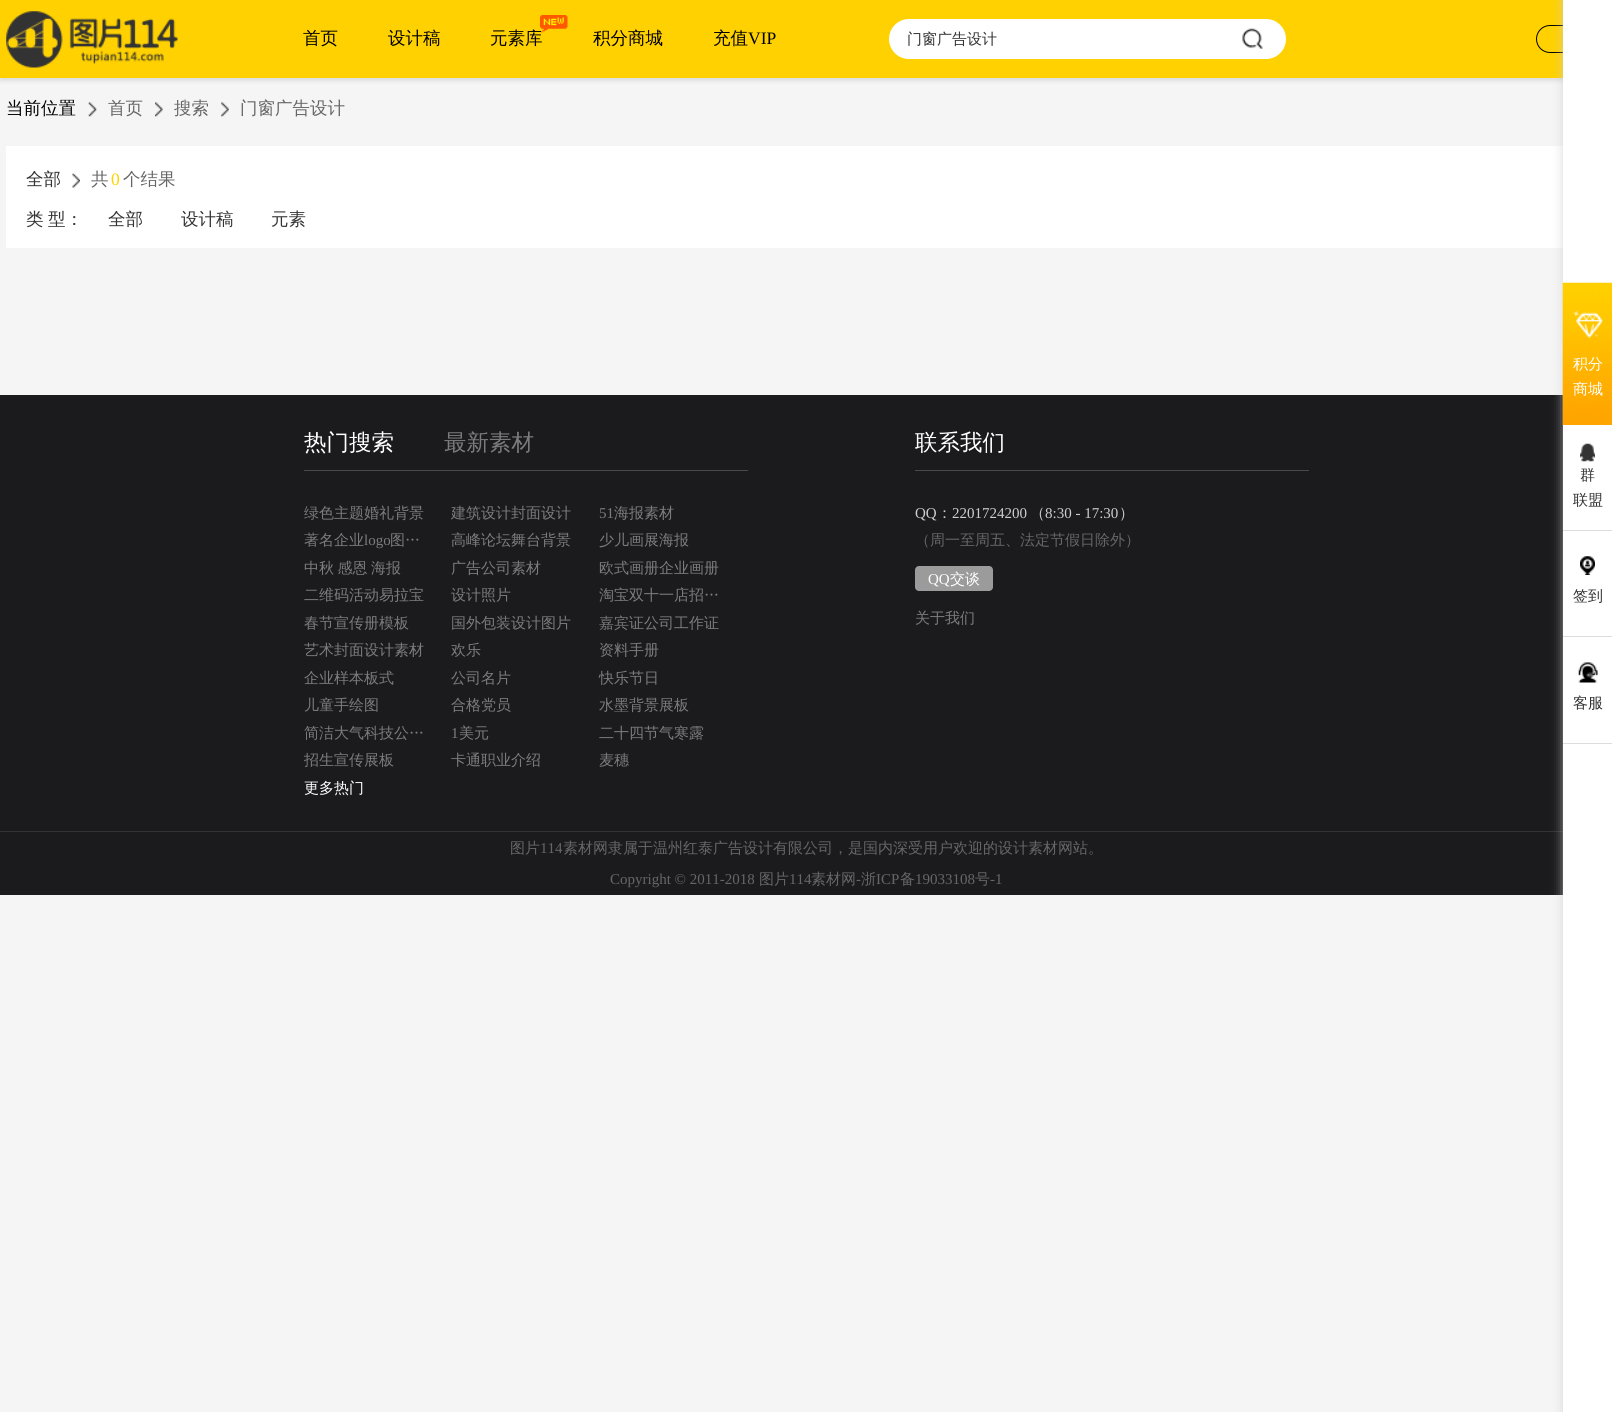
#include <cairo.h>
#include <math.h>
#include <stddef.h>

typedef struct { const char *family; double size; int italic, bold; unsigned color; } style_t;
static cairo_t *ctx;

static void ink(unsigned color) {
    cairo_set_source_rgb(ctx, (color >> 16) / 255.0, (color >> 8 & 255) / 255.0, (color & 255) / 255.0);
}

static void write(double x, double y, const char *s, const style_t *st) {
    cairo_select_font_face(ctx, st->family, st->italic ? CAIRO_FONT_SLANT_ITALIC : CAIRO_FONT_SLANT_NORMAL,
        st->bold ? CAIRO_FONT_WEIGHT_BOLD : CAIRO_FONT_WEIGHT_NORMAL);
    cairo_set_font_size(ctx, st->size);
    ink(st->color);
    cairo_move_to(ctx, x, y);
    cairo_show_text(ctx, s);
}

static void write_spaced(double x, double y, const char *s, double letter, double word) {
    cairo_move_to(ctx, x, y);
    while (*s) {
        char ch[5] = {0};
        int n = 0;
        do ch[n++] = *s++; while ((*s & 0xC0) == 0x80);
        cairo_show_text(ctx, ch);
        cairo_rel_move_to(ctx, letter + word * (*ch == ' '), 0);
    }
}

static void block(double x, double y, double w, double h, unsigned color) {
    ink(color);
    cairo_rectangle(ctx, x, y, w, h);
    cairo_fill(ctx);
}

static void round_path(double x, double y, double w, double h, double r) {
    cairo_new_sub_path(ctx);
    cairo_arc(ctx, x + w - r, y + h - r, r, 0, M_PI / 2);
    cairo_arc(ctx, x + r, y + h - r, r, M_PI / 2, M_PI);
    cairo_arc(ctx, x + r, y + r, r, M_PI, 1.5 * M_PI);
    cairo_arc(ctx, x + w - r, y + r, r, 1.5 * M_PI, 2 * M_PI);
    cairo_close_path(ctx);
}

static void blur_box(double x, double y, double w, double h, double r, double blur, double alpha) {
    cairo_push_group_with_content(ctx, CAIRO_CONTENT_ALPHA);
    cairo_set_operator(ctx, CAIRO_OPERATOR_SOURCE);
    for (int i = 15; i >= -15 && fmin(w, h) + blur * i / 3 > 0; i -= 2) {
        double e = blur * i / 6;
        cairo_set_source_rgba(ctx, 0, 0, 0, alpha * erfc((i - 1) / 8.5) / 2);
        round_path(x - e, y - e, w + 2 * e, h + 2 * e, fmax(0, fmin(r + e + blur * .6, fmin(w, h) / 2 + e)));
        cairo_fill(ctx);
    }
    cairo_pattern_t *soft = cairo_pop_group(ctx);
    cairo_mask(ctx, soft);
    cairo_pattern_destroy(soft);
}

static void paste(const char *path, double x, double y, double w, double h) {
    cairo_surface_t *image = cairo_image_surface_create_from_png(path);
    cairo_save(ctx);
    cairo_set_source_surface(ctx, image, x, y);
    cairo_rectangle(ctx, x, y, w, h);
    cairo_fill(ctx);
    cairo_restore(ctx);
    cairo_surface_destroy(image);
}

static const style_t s1 = {"WenQuanYi Zen Hei Medium", 17.5, 0, 0, 0x000000};
static const style_t s2 = {"Liberation Serif", 17.5, 0, 0, 0x000000};
static const style_t s3 = {"WenQuanYi Zen Hei Medium", 15, 0, 0, 0x333333};
static const style_t s4 = {"WenQuanYi Zen Hei Medium", 17.5, 0, 0, 0x666666};
static const style_t s5 = {"WenQuanYi Zen Hei Medium", 17.5, 0, 0, 0x333333};
static const style_t s6 = {"Liberation Serif", 17.5, 0, 0, 0xffd100};
static const style_t s7 = {"WenQuanYi Zen Hei Medium", 22.5, 0, 0, 0xffffff};
static const style_t s8 = {"WenQuanYi Zen Hei Medium", 22.5, 0, 0, 0x7c7c7d};
static const style_t s9 = {"WenQuanYi Zen Hei Medium", 15, 0, 0, 0x7c7c7d};
static const style_t s10 = {"Liberation Serif", 15, 0, 0, 0x7c7c7d};
static const style_t s11 = {"WenQuanYi Zen Hei Medium", 15, 0, 0, 0xffffff};
static const style_t s12 = {"Liberation Serif", 15, 0, 0, 0xcecece};
static const style_t s13 = {"WenQuanYi Zen Hei Medium", 15, 0, 0, 0xcecece};
static const style_t s14 = {"WenQuanYi Zen Hei Medium", 15, 0, 0, 0x666666};
static const style_t s15 = {"Liberation Serif", 15, 0, 0, 0xffffff};
static const style_t s16 = {"Liberation Serif", 15, 0, 0, 0x666666};

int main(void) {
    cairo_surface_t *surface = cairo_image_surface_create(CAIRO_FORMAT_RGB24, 1612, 1412);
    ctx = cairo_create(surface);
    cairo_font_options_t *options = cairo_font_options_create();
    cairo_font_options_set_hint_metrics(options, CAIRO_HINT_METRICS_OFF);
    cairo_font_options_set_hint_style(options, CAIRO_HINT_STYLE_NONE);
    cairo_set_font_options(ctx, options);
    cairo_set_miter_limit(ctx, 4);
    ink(0xf5f5f5);
    cairo_paint(ctx);
    ink(0xdddddd);
    blur_box(0, 4, 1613, 77, 0, 2, 1);
    block(0, 0, 1563, 78, 0xffd100);
    paste("pic1.png", 6, 11, 172, 57);
    write(303, 44, "首页", &s1);
    write(388, 44, "设计稿", &s1);
    write(490, 44, "元素库", &s1);
    paste("pic2.png", 540, 15, 28, 18);
    write(593, 44, "积分商城", &s1);
    write(713, 44, "充值", &s1);
    write(748, 44, "VIP", &s2);
    ink(0xffffff);
    round_path(889, 19, 397, 40, 20);
    cairo_fill(ctx);
    block(908, 19, 1, 40, 0xffffff);
    write(907, 44, "门窗广告设计", &s3);
    paste("pic3.png", 1242, 28, 21, 21);
    round_path(1536.5, 25.5, 69, 27, 13.5);
    ink(0x000000);
    cairo_set_line_width(ctx, 1);
    cairo_stroke(ctx);
    write(6, 114, "当前位置", &s1);
    paste("pic4.png", 88, 102, 9, 15);
    write(108, 114, "首页", &s4);
    paste("pic5.png", 155, 102, 8, 15);
    write(174, 114, "搜索", &s4);
    paste("pic6.png", 221, 102, 8, 15);
    write(240, 114, "门窗广告设计", &s4);
    block(6, 146, 1557, 102, 0xffffff);
    write(26, 185, "全部", &s5);
    paste("pic7.png", 72, 173, 8, 15);
    write(91, 185, "共", &s4);
    write(111, 185, "0", &s6);
    write(123, 185, "个结果", &s4);
    write(26, 225, "类", &s5);
    write(48, 225, "型：", &s5);
    write(108, 225, "全部", &s5);
    write(181, 225, "设计稿", &s5);
    write(271, 225, "元素", &s5);
    block(0, 395, 1563, 500, 0x1b1b1e);
    block(304, 470, 444, 1, 0x49494b);
    write(304, 450, "热门搜索", &s7);
    write(444, 450, "最新素材", &s8);
    write(304, 518, "绿色主题婚礼背景", &s9);
    write(451, 518, "建筑设计封面设计", &s9);
    write(599, 518, "51", &s10);
    write(614, 518, "海报素材", &s9);
    write(304, 545, "著名企业", &s9);
    write(364, 545, "logo", &s10);
    write(390, 545, "图…", &s9);
    write(451, 545, "高峰论坛舞台背景", &s9);
    write(599, 545, "少儿画展海报", &s9);
    write_spaced(304, 573, "中秋 感恩 海报", 0, -1);
    write(451, 573, "广告公司素材", &s9);
    write(599, 573, "欧式画册企业画册", &s9);
    write(304, 600, "二维码活动易拉宝", &s9);
    write(451, 600, "设计照片", &s9);
    write(599, 600, "淘宝双十一店招…", &s9);
    write(304, 628, "春节宣传册模板", &s9);
    write(451, 628, "国外包装设计图片", &s9);
    write(599, 628, "嘉宾证公司工作证", &s9);
    write(304, 655, "艺术封面设计素材", &s9);
    write(451, 655, "欢乐", &s9);
    write(599, 655, "资料手册", &s9);
    write(304, 683, "企业样本板式", &s9);
    write(451, 683, "公司名片", &s9);
    write(599, 683, "快乐节日", &s9);
    write(304, 710, "儿童手绘图", &s9);
    write(451, 710, "合格党员", &s9);
    write(599, 710, "水墨背景展板", &s9);
    write(304, 738, "简洁大气科技公…", &s9);
    write(451, 738, "1", &s10);
    write(459, 738, "美元", &s9);
    write(599, 738, "二十四节气寒露", &s9);
    write(304, 765, "招生宣传展板", &s9);
    write(451, 765, "卡通职业介绍", &s9);
    write(599, 765, "麦穗", &s9);
    write(304, 793, "更多热门", &s11);
    block(915, 470, 394, 1, 0x49494b);
    write(915, 450, "联系我们", &s7);
    write(915, 518, "QQ", &s12);
    write(937, 518, "：", &s13);
    write(952, 518, "2201724200", &s12);
    write(1030, 518, "（", &s13);
    write(1045, 518, "8:30 - 17:30", &s12);
    write(1119, 518, "）", &s13);
    write(915, 545, "（周一至周五、法定节假日除外）", &s14);
    ink(0x9b9b9b);
    round_path(915, 566, 78, 25, 4);
    cairo_fill(ctx);
    write(928, 584, "QQ", &s15);
    write(950, 584, "交谈", &s11);
    write(915, 623, "关于我们", &s9);
    block(0, 831, 1563, 1, 0x323235);
    write(510, 853, "图片", &s14);
    write(540, 853, "114", &s16);
    write(563, 853, "素材网隶属于温州红泰广告设计有限公司，是国内深受用户欢迎的设计素材网站。", &s14);
    write(610, 884, "Copyright © 2011-2018", &s16);
    write(759, 884, "图片", &s14);
    write(789, 884, "114", &s16);
    write(811, 884, "素材网", &s14);
    write(856, 884, "-", &s16);
    write(861, 884, "浙", &s14);
    write(876, 884, "ICP", &s16);
    write(900, 884, "备", &s14);
    write(915, 884, "19033108", &s16);
    write(975, 884, "号", &s14);
    write(990, 884, "-1", &s16);
    ink(0xcccccc);
    blur_box(1565, 0, 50, 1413, 0, 6, 1);
    block(1563, 0, 49, 1412, 0xffffff);
    paste("pic8.png", 1562, 282, 50, 143);
    paste("pic9.png", 1572, 310, 31, 28);
    write(1573, 369, "积分", &s11);
    write(1573, 394, "商城", &s11);
    block(1563, 530, 49, 1, 0xdcdcdc);
    paste("pic10.png", 1580, 443, 15, 19);
    write(1580, 480, "群", &s3);
    write(1573, 505, "联盟", &s3);
    paste("pic11.png", 1580, 556, 15, 19);
    block(1563, 636, 49, 1, 0xdcdcdc);
    write(1573, 601, "签到", &s3);
    paste("pic12.png", 1578, 662, 20, 21);
    block(1563, 743, 49, 1, 0xdcdcdc);
    write(1573, 708, "客服", &s3);
    cairo_surface_write_to_png(surface, "screenshot.png");
    cairo_font_options_destroy(options);
    cairo_destroy(ctx);
    cairo_surface_destroy(surface);
    return 0;
}
